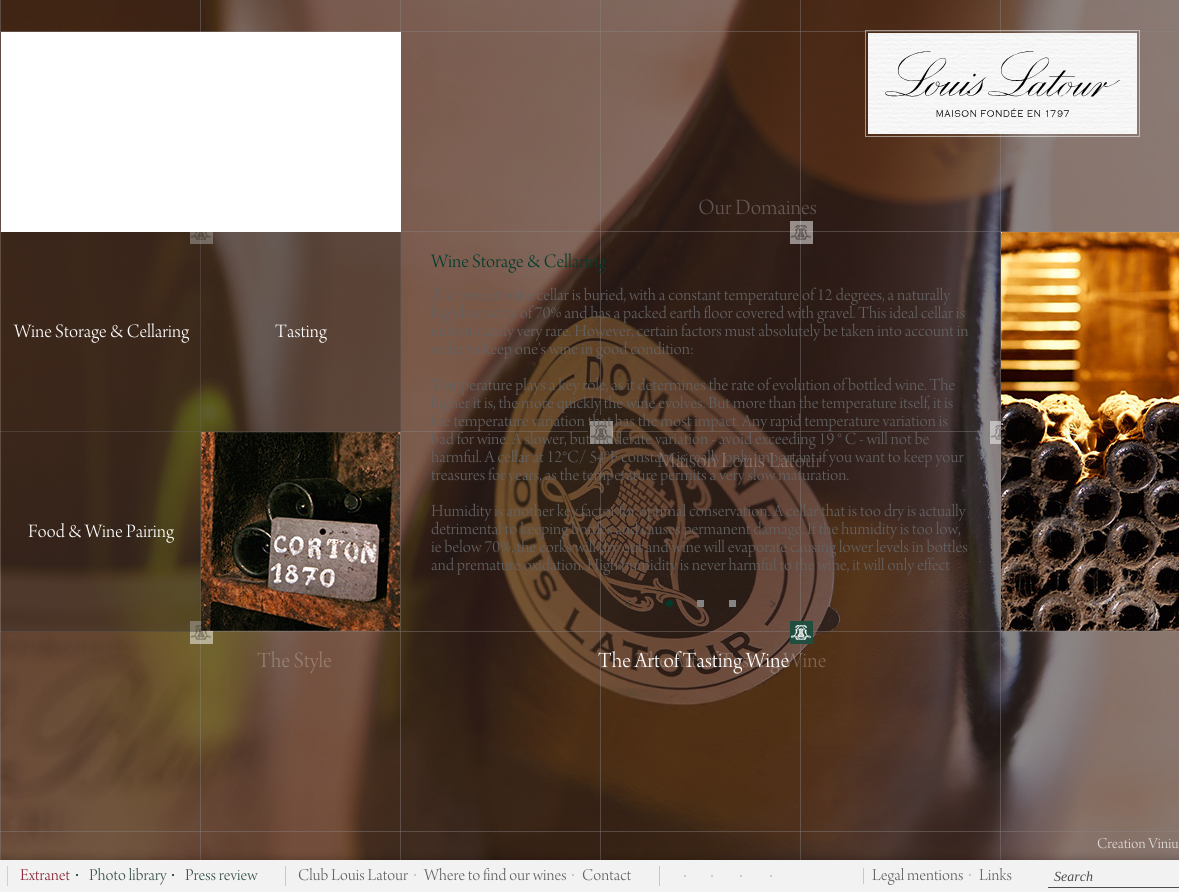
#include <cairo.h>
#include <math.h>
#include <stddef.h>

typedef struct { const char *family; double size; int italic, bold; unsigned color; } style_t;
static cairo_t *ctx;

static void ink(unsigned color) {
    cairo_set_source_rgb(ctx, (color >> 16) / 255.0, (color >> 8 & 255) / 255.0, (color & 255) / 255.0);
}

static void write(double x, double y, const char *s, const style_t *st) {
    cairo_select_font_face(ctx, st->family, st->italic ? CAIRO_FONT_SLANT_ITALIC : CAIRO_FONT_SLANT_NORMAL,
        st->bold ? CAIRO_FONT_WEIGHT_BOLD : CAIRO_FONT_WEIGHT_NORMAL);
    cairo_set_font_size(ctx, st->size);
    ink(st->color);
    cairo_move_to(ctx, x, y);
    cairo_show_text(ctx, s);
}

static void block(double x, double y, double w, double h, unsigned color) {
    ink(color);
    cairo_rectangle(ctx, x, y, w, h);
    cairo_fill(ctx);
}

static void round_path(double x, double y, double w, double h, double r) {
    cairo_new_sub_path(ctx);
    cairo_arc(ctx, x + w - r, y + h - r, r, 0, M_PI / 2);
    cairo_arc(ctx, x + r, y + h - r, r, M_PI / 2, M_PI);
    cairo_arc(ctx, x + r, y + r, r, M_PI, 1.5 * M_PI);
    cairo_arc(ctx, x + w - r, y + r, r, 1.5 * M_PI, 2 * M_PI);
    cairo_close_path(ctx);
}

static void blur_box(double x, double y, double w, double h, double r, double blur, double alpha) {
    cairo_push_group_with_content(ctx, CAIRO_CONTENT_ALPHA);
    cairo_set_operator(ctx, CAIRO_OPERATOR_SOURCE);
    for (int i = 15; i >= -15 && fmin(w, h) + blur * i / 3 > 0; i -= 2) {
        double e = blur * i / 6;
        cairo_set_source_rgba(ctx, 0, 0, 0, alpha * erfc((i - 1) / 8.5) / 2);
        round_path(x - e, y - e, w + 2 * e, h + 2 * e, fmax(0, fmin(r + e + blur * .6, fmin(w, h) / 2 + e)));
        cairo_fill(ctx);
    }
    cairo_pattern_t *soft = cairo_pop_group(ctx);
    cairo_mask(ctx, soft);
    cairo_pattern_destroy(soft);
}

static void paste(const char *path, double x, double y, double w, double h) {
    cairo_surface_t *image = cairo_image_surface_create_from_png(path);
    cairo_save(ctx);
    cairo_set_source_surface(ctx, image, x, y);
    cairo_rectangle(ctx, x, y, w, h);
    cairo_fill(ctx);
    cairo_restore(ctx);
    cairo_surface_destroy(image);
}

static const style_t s1 = {"Liberation Serif", 14, 1, 0, 0x4f4c4b};

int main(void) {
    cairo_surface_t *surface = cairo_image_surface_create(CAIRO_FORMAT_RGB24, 1179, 892);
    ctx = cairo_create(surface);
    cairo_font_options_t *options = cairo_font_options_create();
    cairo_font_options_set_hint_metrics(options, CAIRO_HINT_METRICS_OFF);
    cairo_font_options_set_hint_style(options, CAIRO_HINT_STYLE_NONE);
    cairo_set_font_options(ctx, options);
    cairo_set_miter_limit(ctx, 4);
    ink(0xffffff);
    cairo_paint(ctx);
    paste("pic1.png", 0, 0, 1179, 860);
    cairo_set_source_rgba(ctx, 0.549, 0.529, 0.529, 0.4);
    cairo_rectangle(ctx, 0, 0, 1, 860);
    cairo_fill(ctx);
    cairo_rectangle(ctx, 200, 0, 1, 860);
    cairo_fill(ctx);
    cairo_rectangle(ctx, 400, 0, 1, 860);
    cairo_fill(ctx);
    cairo_rectangle(ctx, 600, 0, 1, 415);
    cairo_fill(ctx);
    cairo_rectangle(ctx, 600, 459, 1, 401);
    cairo_fill(ctx);
    cairo_rectangle(ctx, 800, 0, 1, 860);
    cairo_fill(ctx);
    cairo_rectangle(ctx, 1000, 0, 1, 860);
    cairo_fill(ctx);
    cairo_rectangle(ctx, 0, 31, 1179, 1);
    cairo_fill(ctx);
    cairo_rectangle(ctx, 0, 231, 1179, 1);
    cairo_fill(ctx);
    cairo_rectangle(ctx, 0, 431, 588, 1);
    cairo_fill(ctx);
    cairo_rectangle(ctx, 612, 431, 389, 1);
    cairo_fill(ctx);
    cairo_rectangle(ctx, 0, 631, 1179, 1);
    cairo_fill(ctx);
    cairo_rectangle(ctx, 0, 831, 1179, 1);
    cairo_fill(ctx);
    cairo_rectangle(ctx, 865.5, 30.5, 274, 106);
    cairo_set_source_rgba(ctx, 1, 1, 1, 0.5);
    cairo_set_line_width(ctx, 1);
    cairo_stroke(ctx);
    paste("pic2.png", 868, 33, 269, 101);
    paste("pic3.png", 885, 51, 235, 66);
    block(1, 32, 400, 200, 0xffffff);
    paste("pic29.png", 190, 232, 23, 12);
    cairo_set_source_rgba(ctx, 0.192, 0.161, 0.141, 0.4);
    cairo_rectangle(ctx, 1, 232, 200, 200);
    cairo_fill(ctx);
    paste("pic4.png", 13, 323, 177, 20);
    cairo_rectangle(ctx, 201, 232, 200, 200);
    cairo_fill(ctx);
    paste("pic5.png", 275, 324, 52, 19);
    paste("pic35.png", 190, 621, 23, 23);
    cairo_rectangle(ctx, 1, 432, 200, 200);
    cairo_fill(ctx);
    paste("pic6.png", 28, 523, 146, 20);
    paste("pic7.png", 201, 432, 199, 199);
    paste("pic8.png", 430, 253, 176, 20);
    paste("pic9.png", 431, 287, 520, 19);
    paste("pic10.png", 431, 305, 534, 19);
    paste("pic11.png", 431, 323, 538, 18);
    paste("pic12.png", 431, 341, 262, 19);
    paste("pic13.png", 431, 377, 524, 18);
    paste("pic14.png", 431, 395, 522, 18);
    paste("pic32.png", 590, 421, 23, 23);
    paste("pic15.png", 431, 413, 517, 18);
    paste("pic16.png", 431, 431, 498, 19);
    paste("pic33.png", 657, 452, 165, 16);
    paste("pic17.png", 431, 449, 533, 18);
    paste("pic18.png", 431, 467, 418, 18);
    paste("pic19.png", 431, 503, 535, 18);
    paste("pic20.png", 431, 521, 529, 19);
    paste("pic21.png", 431, 539, 537, 18);
    paste("pic22.png", 431, 557, 519, 19);
    paste("pic23.png", 625, 600, 7, 7);
    paste("pic24.png", 666, 600, 7, 7);
    block(697, 600, 7, 7, 0x858484);
    block(729, 600, 7, 7, 0x858484);
    paste("pic25.png", 770, 600, 6, 7);
    paste("pic26.png", 1001, 232, 178, 399);
    paste("pic27.png", 790, 621, 23, 23);
    paste("pic37.png", 635, 651, 191, 23);
    paste("pic28.png", 598, 651, 191, 23);
    paste("pic30.png", 790, 221, 23, 23);
    paste("pic31.png", 699, 199, 117, 16);
    paste("pic34.png", 990, 421, 11, 23);
    paste("pic36.png", 257, 651, 75, 23);
    paste("pic38.png", 1097, 837, 82, 12);
    ink(0x000000);
    blur_box(0, 860, 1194, 32, 0, 5, 0.3);
    block(0, 860, 1179, 32, 0xf2f2f2);
    block(7, 866, 1, 20, 0xddc9cc);
    paste("pic39.png", 20, 869, 50, 12);
    block(76, 874, 2, 2, 0x375249);
    paste("pic40.png", 89, 867, 78, 18);
    block(172, 874, 2, 2, 0x375249);
    paste("pic41.png", 185, 869, 73, 12);
    block(285, 866, 1, 20, 0xc8c8c8);
    paste("pic42.png", 298, 868, 110, 13);
    block(414, 874, 2, 2, 0xccc9c7);
    paste("pic43.png", 423, 867, 143, 14);
    block(572, 874, 2, 2, 0xccc9c7);
    paste("pic44.png", 582, 869, 49, 12);
    block(659, 866, 1, 20, 0xc8c8c8);
    block(684, 875, 2, 2, 0xccc9c7);
    block(711, 875, 2, 2, 0xccc9c7);
    block(740, 875, 2, 2, 0xccc9c7);
    block(770, 875, 2, 2, 0xccc9c7);
    block(863, 868, 1, 16, 0xc8c8c8);
    paste("pic45.png", 872, 868, 91, 17);
    block(969, 874, 2, 2, 0xccc9c7);
    paste("pic46.png", 979, 868, 33, 13);
    block(1048, 887, 131, 1, 0x4f4c4b);
    write(1054, 881, "Search", &s1);
    cairo_surface_write_to_png(surface, "screenshot.png");
    cairo_font_options_destroy(options);
    cairo_destroy(ctx);
    cairo_surface_destroy(surface);
    return 0;
}
